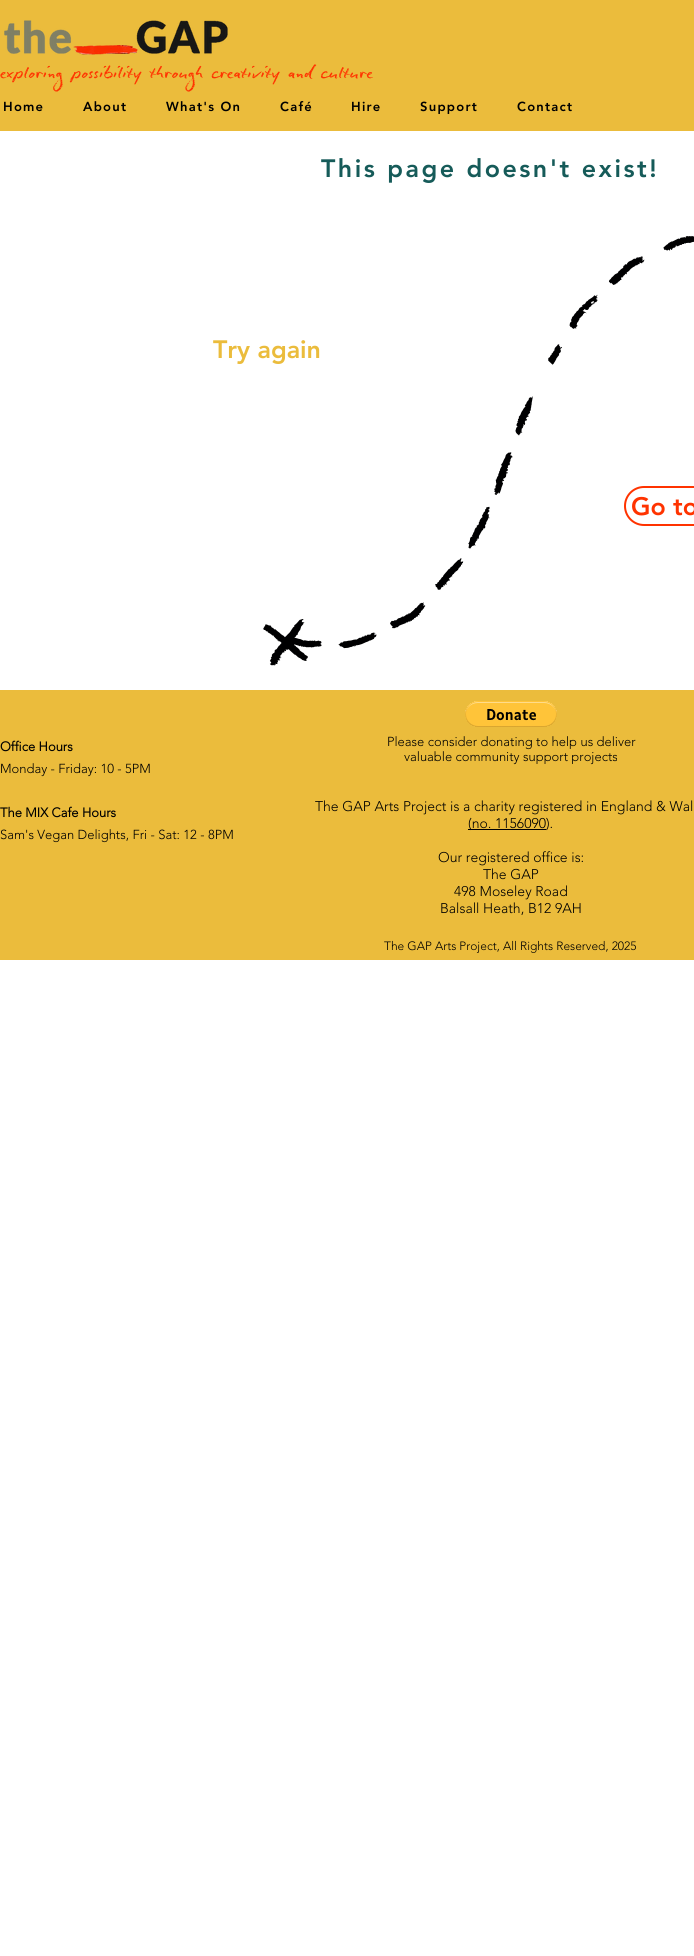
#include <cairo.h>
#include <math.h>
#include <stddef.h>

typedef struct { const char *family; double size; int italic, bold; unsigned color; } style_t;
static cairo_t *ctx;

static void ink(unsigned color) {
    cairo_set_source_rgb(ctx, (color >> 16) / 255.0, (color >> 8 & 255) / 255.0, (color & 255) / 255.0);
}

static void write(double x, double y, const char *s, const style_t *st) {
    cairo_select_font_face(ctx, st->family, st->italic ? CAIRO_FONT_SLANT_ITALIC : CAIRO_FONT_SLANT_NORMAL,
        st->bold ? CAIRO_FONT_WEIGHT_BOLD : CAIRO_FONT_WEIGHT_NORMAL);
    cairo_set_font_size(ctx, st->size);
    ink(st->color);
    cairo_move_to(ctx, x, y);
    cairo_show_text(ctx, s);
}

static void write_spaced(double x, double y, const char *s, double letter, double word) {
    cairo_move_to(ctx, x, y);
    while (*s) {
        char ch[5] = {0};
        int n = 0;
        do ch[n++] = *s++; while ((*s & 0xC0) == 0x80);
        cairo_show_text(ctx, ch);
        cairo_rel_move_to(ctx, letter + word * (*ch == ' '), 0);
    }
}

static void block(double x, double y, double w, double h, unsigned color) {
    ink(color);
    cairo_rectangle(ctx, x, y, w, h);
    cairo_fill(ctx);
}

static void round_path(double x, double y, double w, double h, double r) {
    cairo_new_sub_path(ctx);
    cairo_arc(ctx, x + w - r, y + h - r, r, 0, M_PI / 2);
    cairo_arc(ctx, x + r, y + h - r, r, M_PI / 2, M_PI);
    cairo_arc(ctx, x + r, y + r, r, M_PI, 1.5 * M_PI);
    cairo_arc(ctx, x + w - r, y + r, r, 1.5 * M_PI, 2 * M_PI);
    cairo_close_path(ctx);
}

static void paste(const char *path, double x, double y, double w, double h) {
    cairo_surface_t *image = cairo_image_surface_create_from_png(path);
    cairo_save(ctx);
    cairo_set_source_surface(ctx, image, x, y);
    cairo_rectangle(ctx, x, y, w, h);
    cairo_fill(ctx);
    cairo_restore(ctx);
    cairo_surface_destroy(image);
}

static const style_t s1 = {"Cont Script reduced", 18, 0, 0, 0xff3300};
static const style_t s2 = {"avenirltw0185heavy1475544 Black", 25, 0, 0, 0xebbc3c};
static const style_t s3 = {"avenirltw0185heavy1475544 Black", 25, 0, 0, 0xff3300};
static const style_t s4 = {"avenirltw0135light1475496", 13, 0, 1, 0x000000};
static const style_t s5 = {"avenirltw0135light1475496 Light", 13, 0, 0, 0x000000};
static const style_t s6 = {"avenirltw0135light1475496 Light", 14, 0, 0, 0x000000};
static const style_t s7 = {"avenirltw0135light1475496 Light", 12, 0, 0, 0x000000};

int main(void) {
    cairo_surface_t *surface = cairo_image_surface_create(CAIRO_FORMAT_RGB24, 694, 1956);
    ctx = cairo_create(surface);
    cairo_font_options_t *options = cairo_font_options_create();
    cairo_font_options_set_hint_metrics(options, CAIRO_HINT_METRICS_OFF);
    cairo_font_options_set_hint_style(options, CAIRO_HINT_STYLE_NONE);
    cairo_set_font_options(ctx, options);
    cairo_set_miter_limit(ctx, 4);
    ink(0xffffff);
    cairo_paint(ctx);
    block(0, 0, 694, 131, 0xebbc3c);
    paste("pic1.png", 4, 20, 224, 35);
    write(0, 78, "exploring possibility through creativity and culture", &s1);
    cairo_select_font_face(ctx, "avenirltw0185heavy1475544 Black", CAIRO_FONT_SLANT_NORMAL, CAIRO_FONT_WEIGHT_NORMAL);
    cairo_set_font_size(ctx, 13);
    ink(0x000000);
    write_spaced(3, 111, "Home", 1.25, 0);
    write_spaced(83, 111, "About", 1.25, 0);
    write_spaced(166, 111, "What's On", 1.25, 0);
    write_spaced(280, 111, "Café", 1.25, 0);
    write_spaced(351, 111, "Hire", 1.25, 0);
    write_spaced(420, 111, "Support", 1.25, 0);
    write_spaced(517, 111, "Contact", 1.25, 0);
    cairo_set_font_size(ctx, 25);
    ink(0x165b59);
    write_spaced(321, 177, "This page doesn't exist!", 2.5, 0);
    paste("pic2.png", 263, 235, 431, 431);
    write(213, 358, "Try again", &s2);
    round_path(625, 487, 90, 38, 19);
    ink(0xff3300);
    cairo_stroke(ctx);
    write(631, 515, "Go to", &s3);
    block(0, 690, 694, 270, 0xebbc3c);
    paste("pic3.png", 465, 701, 92, 26);
    write(0, 751, "Office Hours", &s4);
    write(0, 773, "Monday - Friday: 10 - 5PM", &s5);
    write(0, 817, "The MIX Cafe Hours", &s4);
    write(0, 839, "Sam's Vegan Delights, Fri - Sat: 12 - 8PM", &s5);
    write(387, 746, "Please consider donating to help us deliver", &s5);
    write(404, 761, "valuable community support projects", &s5);
    write(315, 811, "The GAP Arts Project is a charity registered in England & Wal", &s6);
    block(468, 829, 78, 1, 0x000000);
    write(468, 828, "(no. 1156090).", &s6);
    write(438, 862, "Our registered office is:", &s6);
    write(483, 879, "The GAP", &s6);
    write(454, 896, "498 Moseley Road", &s6);
    write(440, 913, "Balsall Heath, B12 9AH", &s6);
    write(384, 950, "The GAP Arts Project, All Rights Reserved, 2025", &s7);
    cairo_surface_write_to_png(surface, "screenshot.png");
    cairo_font_options_destroy(options);
    cairo_destroy(ctx);
    cairo_surface_destroy(surface);
    return 0;
}
